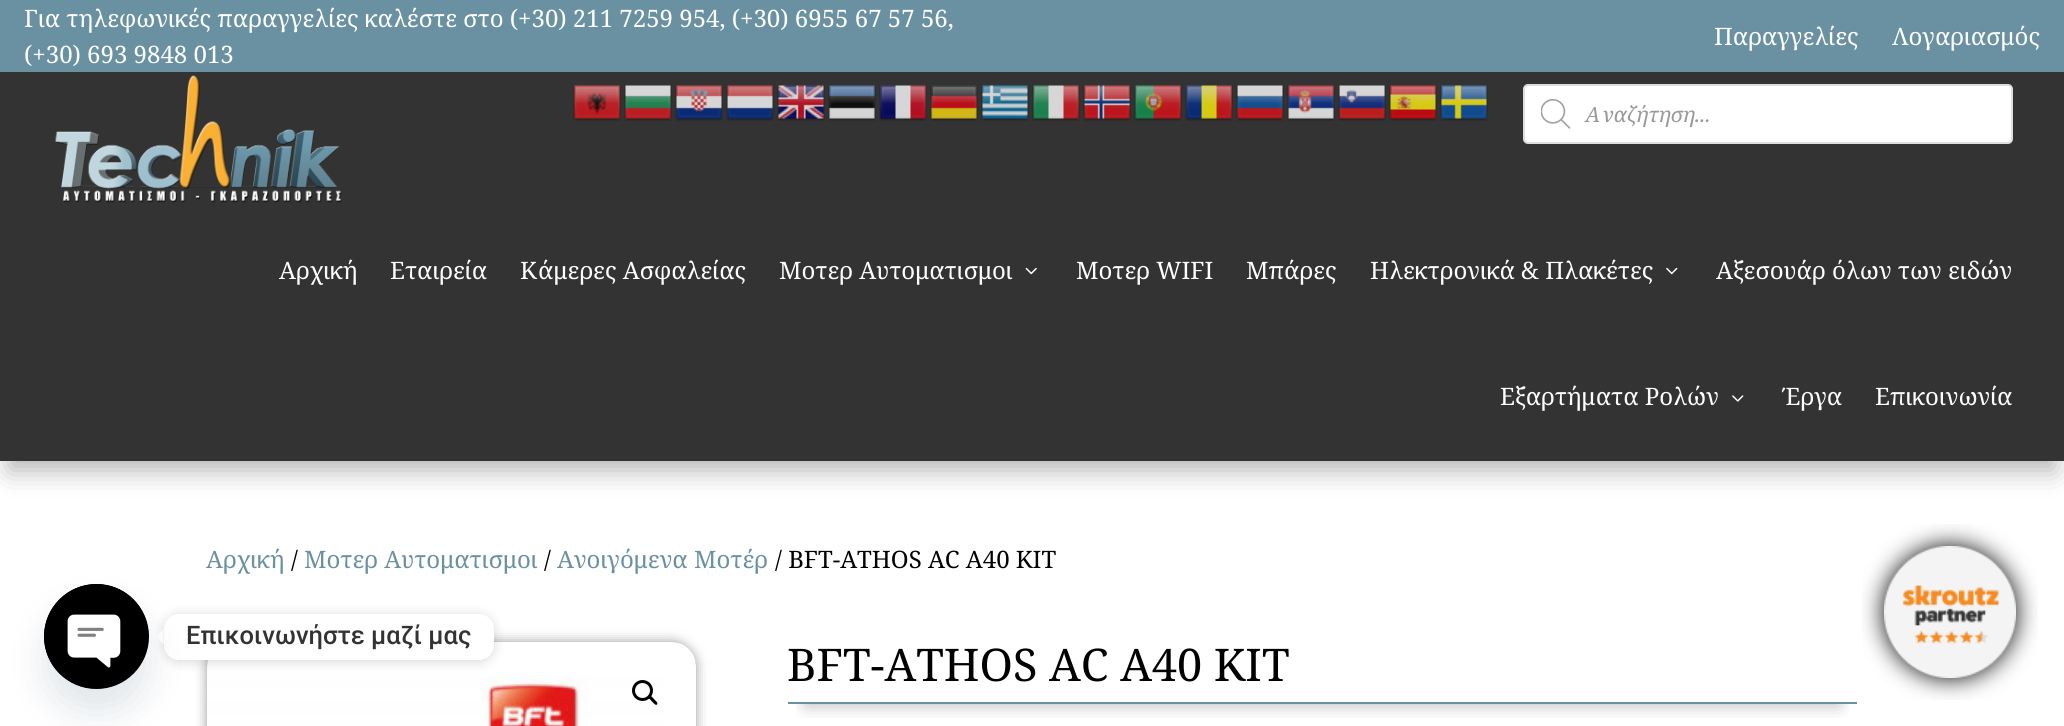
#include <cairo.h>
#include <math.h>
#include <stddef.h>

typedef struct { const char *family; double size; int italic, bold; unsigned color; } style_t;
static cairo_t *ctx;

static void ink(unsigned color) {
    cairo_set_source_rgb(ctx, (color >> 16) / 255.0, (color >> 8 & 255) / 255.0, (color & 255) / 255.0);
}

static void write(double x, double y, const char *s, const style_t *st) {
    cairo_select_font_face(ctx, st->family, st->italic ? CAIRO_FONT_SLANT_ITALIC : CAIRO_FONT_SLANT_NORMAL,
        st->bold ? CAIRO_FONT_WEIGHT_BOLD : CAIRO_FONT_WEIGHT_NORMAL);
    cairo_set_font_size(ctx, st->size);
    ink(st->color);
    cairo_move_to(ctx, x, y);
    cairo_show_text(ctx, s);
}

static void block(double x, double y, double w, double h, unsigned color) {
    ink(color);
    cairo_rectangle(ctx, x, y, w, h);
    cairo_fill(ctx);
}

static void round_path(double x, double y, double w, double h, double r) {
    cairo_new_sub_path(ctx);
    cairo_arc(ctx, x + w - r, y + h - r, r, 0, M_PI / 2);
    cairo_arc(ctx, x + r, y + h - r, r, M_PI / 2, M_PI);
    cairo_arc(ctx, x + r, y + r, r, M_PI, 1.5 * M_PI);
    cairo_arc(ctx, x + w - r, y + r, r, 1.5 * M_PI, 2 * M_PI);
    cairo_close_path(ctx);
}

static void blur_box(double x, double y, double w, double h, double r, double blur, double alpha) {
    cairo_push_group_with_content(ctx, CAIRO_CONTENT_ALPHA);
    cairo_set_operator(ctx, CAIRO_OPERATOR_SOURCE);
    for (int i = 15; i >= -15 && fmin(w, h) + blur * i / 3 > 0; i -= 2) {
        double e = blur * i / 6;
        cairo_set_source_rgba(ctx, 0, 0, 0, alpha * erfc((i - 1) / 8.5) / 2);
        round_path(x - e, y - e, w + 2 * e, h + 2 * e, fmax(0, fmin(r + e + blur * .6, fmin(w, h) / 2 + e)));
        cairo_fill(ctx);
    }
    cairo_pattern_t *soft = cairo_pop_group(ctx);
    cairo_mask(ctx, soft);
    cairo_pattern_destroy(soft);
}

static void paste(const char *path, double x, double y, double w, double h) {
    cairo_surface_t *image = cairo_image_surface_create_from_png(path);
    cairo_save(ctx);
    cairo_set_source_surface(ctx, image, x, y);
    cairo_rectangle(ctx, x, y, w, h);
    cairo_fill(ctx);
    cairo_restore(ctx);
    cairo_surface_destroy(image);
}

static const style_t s1 = {"Noto Serif", 24, 0, 0, 0xffffff};
static const style_t s2 = {"Noto Serif", 21, 1, 0, 0x999999};
static const style_t s3 = {"Noto Serif", 24, 0, 0, 0x6a91a2};
static const style_t s4 = {"Noto Serif", 24, 0, 0, 0x000000};
static const style_t s5 = {"Noto Serif", 45, 0, 0, 0x000000};
static const style_t s6 = {"Roboto Medium", 25.5, 0, 0, 0x333333};

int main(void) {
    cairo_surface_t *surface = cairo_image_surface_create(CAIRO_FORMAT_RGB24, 2064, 726);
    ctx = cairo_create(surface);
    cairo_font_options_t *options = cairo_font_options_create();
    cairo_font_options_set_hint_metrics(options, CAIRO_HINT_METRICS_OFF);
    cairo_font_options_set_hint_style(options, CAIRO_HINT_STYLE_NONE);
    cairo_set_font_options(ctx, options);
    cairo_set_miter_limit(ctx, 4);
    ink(0xffffff);
    cairo_paint(ctx);
    ink(0x000000);
    blur_box(9, 27, 2046, 443, 0, 13.5, 0.3);
    block(0, 72, 2064, 389, 0x333333);
    block(0, 0, 2064, 72, 0x6a91a2);
    write(24, 27, "Για τηλεφωνικές παραγγελίες καλέστε στο (+30) 211 7259 954, (+30) 6955 67 57 56,", &s1);
    write(24, 63, "(+30) 693 9848 013", &s1);
    write(1714, 45, "Παραγγελίες", &s1);
    write(1892, 45, "Λογαριασμός", &s1);
    paste("pic1.png", 55, 75, 287, 128);
    paste("pic2.png", 573, 85, 48, 36);
    paste("pic3.png", 624, 85, 48, 36);
    paste("pic4.png", 675, 85, 48, 36);
    paste("pic5.png", 726, 85, 48, 36);
    paste("pic6.png", 777, 85, 48, 36);
    paste("pic7.png", 828, 85, 48, 36);
    paste("pic8.png", 879, 85, 48, 36);
    paste("pic9.png", 930, 85, 48, 36);
    paste("pic10.png", 981, 85, 48, 36);
    paste("pic11.png", 1032, 85, 48, 36);
    paste("pic12.png", 1083, 85, 48, 36);
    paste("pic13.png", 1134, 85, 48, 36);
    paste("pic14.png", 1185, 85, 48, 36);
    paste("pic15.png", 1236, 85, 48, 36);
    paste("pic16.png", 1287, 85, 48, 36);
    paste("pic17.png", 1338, 85, 48, 36);
    paste("pic18.png", 1389, 85, 48, 36);
    paste("pic19.png", 1440, 85, 48, 36);
    round_path(1524, 85, 488, 58, 4);
    cairo_fill_preserve(ctx);
    ink(0xdddddd);
    cairo_stroke(ctx);
    paste("pic20.png", 1541, 99, 30, 30);
    write(1584, 122, "Αναζήτηση...", &s2);
    write(279, 279, "Αρχική", &s1);
    write(390, 279, "Εταιρεία", &s1);
    write(520, 279, "Κάμερες Ασφαλείας", &s1);
    write(779, 279, "Μοτερ Αυτοματισμοι", &s1);
    paste("pic21.png", 1025, 267, 12, 8);
    write(1076, 279, "Μοτερ WIFI", &s1);
    write(1246, 279, "Μπάρες", &s1);
    write(1370, 279, "Ηλεκτρονικά & Πλακέτες", &s1);
    paste("pic22.png", 1666, 267, 12, 8);
    write(1716, 279, "Αξεσουάρ όλων των ειδών", &s1);
    write(1500, 405, "Εξαρτήματα Ρολών", &s1);
    paste("pic23.png", 1732, 395, 12, 7);
    write(1782, 405, "Έργα", &s1);
    write(1875, 405, "Επικοινωνία", &s1);
    write(206, 568, "Αρχική", &s3);
    write(291, 568, "/", &s4);
    write(304, 568, "Μοτερ Αυτοματισμοι", &s3);
    write(544, 568, "/", &s4);
    write(557, 568, "Ανοιγόμενα Μοτέρ", &s3);
    write(775, 568, "/ BFT-ATHOS AC A40 KIT", &s4);
    ink(0x000000);
    blur_box(207, 642, 489, 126, 24, 6, 0.4);
    paste("pic24.png", 207, 642, 489, 84);
    cairo_arc(ctx, 642.5, 690.5, 9, 0, 2 * M_PI);
    ink(0x000000);
    cairo_set_line_width(ctx, 3);
    cairo_stroke(ctx);
    cairo_new_path(ctx);
    cairo_move_to(ctx, 648.5, 696);
    cairo_curve_to(ctx, 650, 694, 653, 698, 654, 699);
    cairo_curve_to(ctx, 654.5, 700, 658.5, 702.5, 657, 704.5);
    cairo_curve_to(ctx, 655.5, 706, 652.5, 702, 651.5, 701);
    cairo_curve_to(ctx, 651, 700, 647, 697.5, 648.5, 696);
    cairo_close_path(ctx);
    cairo_fill(ctx);
    cairo_save(ctx);
    cairo_rectangle(ctx, 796, 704, 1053, 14);
    cairo_clip(ctx);
    ink(0x000000);
    blur_box(806, 678, 1033, 26, 0, 9, 0.3);
    cairo_restore(ctx);
    block(788, 702, 1069, 2, 0x6a91a2);
    write(787, 681, "BFT-ATHOS AC A40 KIT", &s5);
    paste("pic25.png", 1862, 524, 176, 176);
    ink(0x000000);
    blur_box(164, 615, 330, 47, 15, 6, 0.15);
    ink(0xffffff);
    round_path(164, 614, 330, 46, 15);
    cairo_fill(ctx);
    cairo_new_path(ctx);
    cairo_move_to(ctx, 163.5, 629);
    cairo_line_to(ctx, 163.5, 644);
    cairo_line_to(ctx, 156, 637);
    cairo_close_path(ctx);
    cairo_fill(ctx);
    ink(0x49687e);
    blur_box(44, 608, 105, 105, 52.5, 18, 0.16);
    ink(0x000000);
    cairo_arc(ctx, 96.5, 636.5, 52.5, 0, 2 * M_PI);
    cairo_fill(ctx);
    paste("pic26.png", 44, 584, 105, 105);
    write(186, 644, "Επικοινωνήστε μαζί μας", &s6);
    cairo_surface_write_to_png(surface, "screenshot.png");
    cairo_font_options_destroy(options);
    cairo_destroy(ctx);
    cairo_surface_destroy(surface);
    return 0;
}
